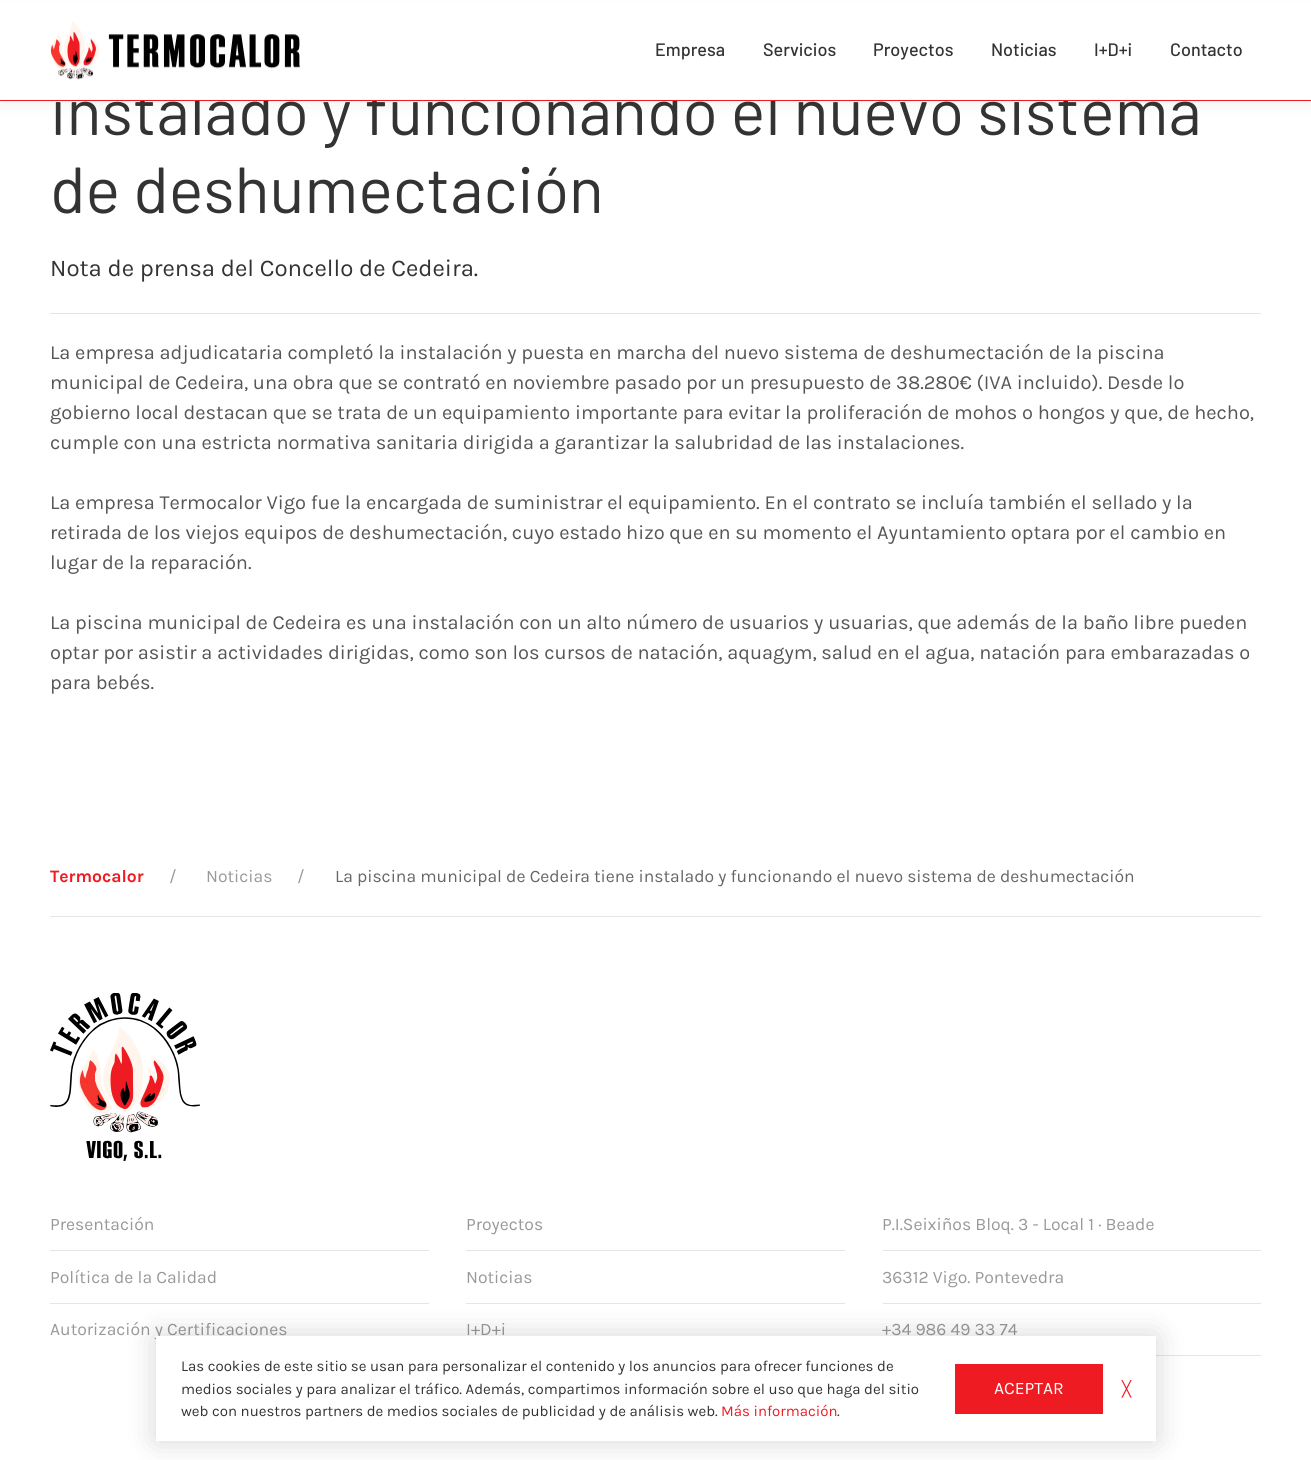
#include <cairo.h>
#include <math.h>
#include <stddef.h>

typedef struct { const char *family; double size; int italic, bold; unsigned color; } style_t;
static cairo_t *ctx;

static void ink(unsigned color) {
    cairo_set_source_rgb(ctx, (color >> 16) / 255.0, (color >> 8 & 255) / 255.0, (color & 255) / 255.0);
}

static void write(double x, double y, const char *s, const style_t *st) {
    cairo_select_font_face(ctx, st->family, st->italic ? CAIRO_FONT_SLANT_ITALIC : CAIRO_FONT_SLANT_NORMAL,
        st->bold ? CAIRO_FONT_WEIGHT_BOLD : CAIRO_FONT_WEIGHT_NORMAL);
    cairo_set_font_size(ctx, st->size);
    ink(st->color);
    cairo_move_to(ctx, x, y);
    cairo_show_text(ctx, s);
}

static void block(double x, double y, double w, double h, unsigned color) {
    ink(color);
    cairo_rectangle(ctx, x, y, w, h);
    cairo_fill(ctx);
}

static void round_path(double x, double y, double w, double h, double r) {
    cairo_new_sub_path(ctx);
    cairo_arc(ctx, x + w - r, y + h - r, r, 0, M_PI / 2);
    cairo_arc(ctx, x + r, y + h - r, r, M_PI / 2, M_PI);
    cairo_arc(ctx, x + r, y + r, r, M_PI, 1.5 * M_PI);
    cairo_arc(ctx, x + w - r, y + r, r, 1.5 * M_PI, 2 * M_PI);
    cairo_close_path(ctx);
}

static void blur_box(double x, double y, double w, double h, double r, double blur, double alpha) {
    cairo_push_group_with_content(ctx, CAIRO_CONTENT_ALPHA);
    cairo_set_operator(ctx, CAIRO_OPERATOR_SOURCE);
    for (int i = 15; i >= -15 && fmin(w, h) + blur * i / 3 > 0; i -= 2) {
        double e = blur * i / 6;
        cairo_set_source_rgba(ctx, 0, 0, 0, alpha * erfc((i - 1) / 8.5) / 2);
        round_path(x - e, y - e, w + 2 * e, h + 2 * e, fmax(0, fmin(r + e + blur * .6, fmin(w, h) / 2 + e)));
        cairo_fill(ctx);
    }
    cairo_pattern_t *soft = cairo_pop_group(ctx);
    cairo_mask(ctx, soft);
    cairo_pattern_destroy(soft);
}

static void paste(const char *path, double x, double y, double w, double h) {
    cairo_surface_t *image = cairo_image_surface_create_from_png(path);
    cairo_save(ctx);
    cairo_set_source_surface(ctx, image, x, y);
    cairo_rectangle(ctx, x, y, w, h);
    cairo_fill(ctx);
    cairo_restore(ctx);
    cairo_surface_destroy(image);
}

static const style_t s1 = {"Barlow", 65, 0, 0, 0x333333};
static const style_t s2 = {"Barlow Medium", 18, 0, 0, 0x333333};
static const style_t s3 = {"Karla", 24, 0, 0, 0x333333};
static const style_t s4 = {"Karla", 20, 0, 0, 0x565656};
static const style_t s5 = {"Karla", 17.5, 0, 1, 0xef1b23};
static const style_t s6 = {"Karla", 17.5, 0, 0, 0x999999};
static const style_t s7 = {"Karla", 17.5, 0, 0, 0x666666};
static const style_t s8 = {"Karla", 15, 0, 0, 0x333333};
static const style_t s9 = {"Karla", 15, 0, 0, 0xef1b23};
static const style_t s10 = {"Karla", 17.5, 0, 0, 0xffffff};
static const style_t s11 = {"DejaVu Sans", 15, 0, 0, 0xef1b23};

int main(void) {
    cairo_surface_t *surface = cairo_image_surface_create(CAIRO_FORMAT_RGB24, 1311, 1460);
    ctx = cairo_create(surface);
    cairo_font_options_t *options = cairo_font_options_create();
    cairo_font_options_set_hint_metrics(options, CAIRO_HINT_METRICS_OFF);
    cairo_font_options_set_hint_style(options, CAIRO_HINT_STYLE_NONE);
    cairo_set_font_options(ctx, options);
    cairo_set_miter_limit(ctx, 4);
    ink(0xffffff);
    cairo_paint(ctx);
    ink(0x000000);
    blur_box(0, 6, 1311, 102, 0, 7.5, 0.04);
    write(50, 135, "instalado y funcionando el nuevo sistema", &s1);
    block(0, 1, 1311, 99, 0xffffff);
    block(0, 100, 1311, 1, 0xef1b23);
    paste("pic1.png", 50, 21, 250, 59);
    write(655, 56, "Empresa", &s2);
    write(763, 56, "Servicios", &s2);
    write(873, 56, "Proyectos", &s2);
    write(991, 56, "Noticias", &s2);
    write(1094, 56, "I+D+i", &s2);
    write(1170, 56, "Contacto", &s2);
    write(50, 213, "de deshumectación", &s1);
    write(50, 276, "Nota de prensa del Concello de Cedeira.", &s3);
    block(50, 313, 1211, 1, 0xe5e5e5);
    write(50, 359, "La empresa adjudicataria completó la instalación y puesta en marcha del nuevo sistema de deshumectación de la piscina", &s4);
    write(50, 389, "municipal de Cedeira, una obra que se contrató en noviembre pasado por un presupuesto de 38.280€ (IVA incluido). Desde lo", &s4);
    write(50, 419, "gobierno local destacan que se trata de un equipamiento importante para evitar la proliferación de mohos o hongos y que, de hecho,", &s4);
    write(50, 449, "cumple con una estricta normativa sanitaria dirigida a garantizar la salubridad de las instalaciones.", &s4);
    write(50, 509, "La empresa Termocalor Vigo fue la encargada de suministrar el equipamiento. En el contrato se incluía también el sellado y la", &s4);
    write(50, 539, "retirada de los viejos equipos de deshumectación, cuyo estado hizo que en su momento el Ayuntamiento optara por el cambio en", &s4);
    write(50, 569, "lugar de la reparación.", &s4);
    write(50, 629, "La piscina municipal de Cedeira es una instalación con un alto número de usuarios y usuarias, que además de la baño libre pueden", &s4);
    write(50, 659, "optar por asistir a actividades dirigidas, como son los cursos de natación, aquagym, salud en el agua, natación para embarazadas o", &s4);
    write(50, 689, "para bebés.", &s4);
    write(50, 882, "Termocalor", &s5);
    write(169, 882, "/", &s6);
    write(206, 882, "Noticias", &s6);
    write(297, 882, "/", &s6);
    write(335, 882, "La piscina municipal de Cedeira tiene instalado y funcionando el nuevo sistema de deshumectación", &s7);
    block(50, 916, 1211, 1, 0xe5e5e5);
    paste("pic2.png", 50, 993, 150, 168);
    write(50, 1230, "Presentación", &s6);
    block(50, 1250, 379, 1, 0xe5e5e5);
    write(50, 1283, "Política de la Calidad", &s6);
    block(50, 1303, 379, 1, 0xe5e5e5);
    write(50, 1335, "Autorización y Certificaciones", &s6);
    write(466, 1230, "Proyectos", &s6);
    block(466, 1250, 379, 1, 0xe5e5e5);
    write(466, 1283, "Noticias", &s6);
    block(466, 1303, 379, 1, 0xe5e5e5);
    write(466, 1335, "I+D+i", &s6);
    write(882, 1230, "P.I.Seixiños Bloq. 3 - Local 1 · Beade", &s6);
    block(883, 1250, 378, 1, 0xe5e5e5);
    write(882, 1283, "36312 Vigo. Pontevedra", &s6);
    block(883, 1303, 378, 1, 0xe5e5e5);
    write(882, 1335, "+34 986 49 33 74", &s6);
    block(1156, 1355, 105, 1, 0xe5e5e5);
    ink(0x000000);
    blur_box(156, 1336, 1000, 105, 0, 15.5, 0.16);
    block(156, 1336, 1000, 105, 0xffffff);
    write(181, 1371, "Las cookies de este sitio se usan para personalizar el contenido y los anuncios para ofrecer funciones de", &s8);
    write(181, 1394, "medios sociales y para analizar el tráfico. Además, compartimos información sobre el uso que haga del sitio", &s8);
    write(181, 1416, "web con nuestros partners de medios sociales de publicidad y de análisis web.", &s8);
    write(721, 1416, "Más información", &s9);
    write(837, 1416, ".", &s8);
    block(955, 1364, 148, 50, 0xef1b23);
    write(994, 1394, "ACEPTAR", &s10);
    write(1122, 1394, "╳", &s11);
    cairo_surface_write_to_png(surface, "screenshot.png");
    cairo_font_options_destroy(options);
    cairo_destroy(ctx);
    cairo_surface_destroy(surface);
    return 0;
}
